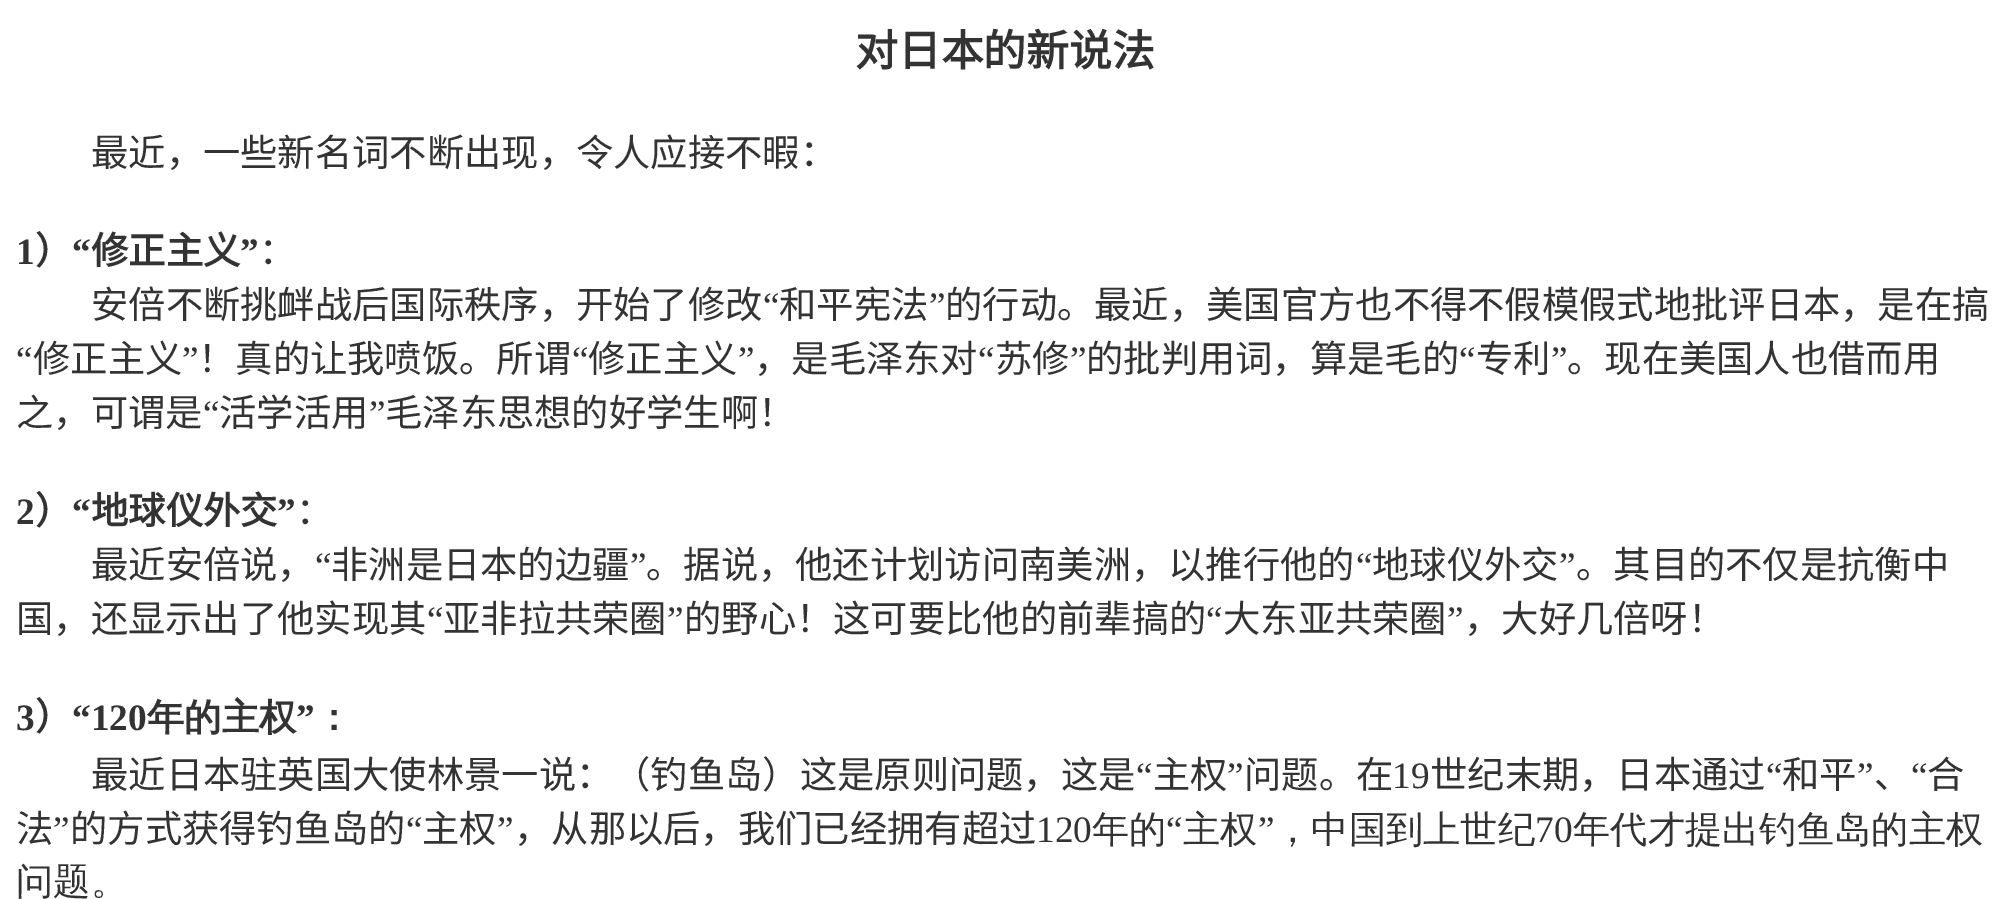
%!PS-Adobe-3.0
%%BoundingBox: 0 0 2008 899
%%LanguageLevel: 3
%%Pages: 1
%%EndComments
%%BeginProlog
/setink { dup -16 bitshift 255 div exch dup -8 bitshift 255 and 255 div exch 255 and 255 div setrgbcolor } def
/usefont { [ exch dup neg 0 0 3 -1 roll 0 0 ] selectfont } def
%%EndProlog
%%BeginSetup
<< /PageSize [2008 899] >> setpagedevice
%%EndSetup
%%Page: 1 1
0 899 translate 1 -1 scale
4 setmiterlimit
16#FFFFFF setink
0 0 2008 899 rectfill
/NotoSansCJKSC-Bold 42.75 usefont
16#333333 setink
855 66 moveto (对日本的新说法) show
/NotoSansCJKSC-Regular 37.3 usefont
91 166 moveto (最近，一些新名词不断出现，令人应接不暇：) show
/LiberationSerif-Bold 37.3 usefont
16 264 moveto (1) show
/NotoSansCJKSC-Bold 37.3 usefont
35 264 moveto (）) show
/LiberationSerif-Bold 37.3 usefont
72 264 moveto (“) show
/NotoSansCJKSC-Bold 37.3 usefont
91 264 moveto (修正主义) show
/LiberationSerif-Bold 37.3 usefont
240 264 moveto (”) show
/NotoSansCJKSC-Regular 37.3 usefont
259 264 moveto (：) show
91 318 moveto (安倍不断挑衅战后国际秩序，开始了修改) show
/LiberationSerif-Regular 37.3 usefont
763 318 moveto (“) show
/NotoSansCJKSC-Regular 37.3 usefont
779 318 moveto (和平宪法) show
/LiberationSerif-Regular 37.3 usefont
929 318 moveto (”) show
/NotoSansCJKSC-Regular 37.3 usefont
945 318 moveto (的行动。最近，美国官方也不得不假模假式地批评日本，是在搞) show
/LiberationSerif-Regular 37.3 usefont
16 372 moveto (“) show
/NotoSansCJKSC-Regular 37.3 usefont
33 372 moveto (修正主义) show
/LiberationSerif-Regular 37.3 usefont
182 372 moveto (”) show
/NotoSansCJKSC-Regular 37.3 usefont
198 372 moveto (！真的让我喷饭。所谓) show
/LiberationSerif-Regular 37.3 usefont
572 372 moveto (“) show
/NotoSansCJKSC-Regular 37.3 usefont
588 372 moveto (修正主义) show
/LiberationSerif-Regular 37.3 usefont
738 372 moveto (”) show
/NotoSansCJKSC-Regular 37.3 usefont
754 372 moveto (，是毛泽东对) show
/LiberationSerif-Regular 37.3 usefont
978 372 moveto (“) show
/NotoSansCJKSC-Regular 37.3 usefont
995 372 moveto (苏修) show
/LiberationSerif-Regular 37.3 usefont
1070 372 moveto (”) show
/NotoSansCJKSC-Regular 37.3 usefont
1086 372 moveto (的批判用词，算是毛的) show
/LiberationSerif-Regular 37.3 usefont
1459 372 moveto (“) show
/NotoSansCJKSC-Regular 37.3 usefont
1476 372 moveto (专利) show
/LiberationSerif-Regular 37.3 usefont
1551 372 moveto (”) show
/NotoSansCJKSC-Regular 37.3 usefont
1567 372 moveto (。现在美国人也借而用) show
16 426 moveto (之，可谓是) show
/LiberationSerif-Regular 37.3 usefont
203 426 moveto (“) show
/NotoSansCJKSC-Regular 37.3 usefont
219 426 moveto (活学活用) show
/LiberationSerif-Regular 37.3 usefont
369 426 moveto (”) show
/NotoSansCJKSC-Regular 37.3 usefont
385 426 moveto (毛泽东思想的好学生啊！) show
/LiberationSerif-Bold 37.3 usefont
16 524 moveto (2) show
/NotoSansCJKSC-Bold 37.3 usefont
35 524 moveto (）) show
/LiberationSerif-Bold 37.3 usefont
72 524 moveto (“) show
/NotoSansCJKSC-Bold 37.3 usefont
91 524 moveto (地球仪外交) show
/LiberationSerif-Bold 37.3 usefont
277 524 moveto (”) show
/NotoSansCJKSC-Regular 37.3 usefont
296 524 moveto (：) show
91 578 moveto (最近安倍说，) show
/LiberationSerif-Regular 37.3 usefont
315 578 moveto (“) show
/NotoSansCJKSC-Regular 37.3 usefont
331 578 moveto (非洲是日本的边疆) show
/LiberationSerif-Regular 37.3 usefont
630 578 moveto (”) show
/NotoSansCJKSC-Regular 37.3 usefont
646 578 moveto (。据说，他还计划访问南美洲，以推行他的) show
/LiberationSerif-Regular 37.3 usefont
1356 578 moveto (“) show
/NotoSansCJKSC-Regular 37.3 usefont
1372 578 moveto (地球仪外交) show
/LiberationSerif-Regular 37.3 usefont
1559 578 moveto (”) show
/NotoSansCJKSC-Regular 37.3 usefont
1576 578 moveto (。其目的不仅是抗衡中) show
16 632 moveto (国，还显示出了他实现其) show
/LiberationSerif-Regular 37.3 usefont
427 632 moveto (“) show
/NotoSansCJKSC-Regular 37.3 usefont
443 632 moveto (亚非拉共荣圈) show
/LiberationSerif-Regular 37.3 usefont
667 632 moveto (”) show
/NotoSansCJKSC-Regular 37.3 usefont
684 632 moveto (的野心！这可要比他的前辈搞的) show
/LiberationSerif-Regular 37.3 usefont
1206 632 moveto (“) show
/NotoSansCJKSC-Regular 37.3 usefont
1223 632 moveto (大东亚共荣圈) show
/LiberationSerif-Regular 37.3 usefont
1447 632 moveto (”) show
/NotoSansCJKSC-Regular 37.3 usefont
1464 632 moveto (，大好几倍呀！) show
/LiberationSerif-Bold 37.3 usefont
16 730 moveto (3) show
/NotoSansCJKSC-Bold 37.3 usefont
35 730 moveto (）) show
/LiberationSerif-Bold 37.3 usefont
72 730 moveto (“120) show
/WenQuanYiZenHei-Bold 37.3 usefont
147 730 moveto (年的主权) show
/LiberationSerif-Bold 37.3 usefont
296 730 moveto (”) show
/WenQuanYiZenHei-Bold 37.3 usefont
315 730 moveto (：) show
/NotoSansCJKSC-Regular 37.3 usefont
91 788 moveto (最近日本驻英国大使林景一说：（钓鱼岛）这是原则问题，这是) show
/LiberationSerif-Regular 37.3 usefont
1136 788 moveto (“) show
/NotoSansCJKSC-Regular 37.3 usefont
1153 788 moveto (主权) show
/LiberationSerif-Regular 37.3 usefont
1227 788 moveto (”) show
/NotoSansCJKSC-Regular 37.3 usefont
1244 788 moveto (问题。在) show
/LiberationSerif-Regular 37.3 usefont
1392 788 moveto (19) show
/NotoSansCJKSC-Regular 37.3 usefont
1430 788 moveto (世纪末期，日本通过) show
/LiberationSerif-Regular 37.3 usefont
1766 788 moveto (“) show
/NotoSansCJKSC-Regular 37.3 usefont
1782 788 moveto (和平) show
/LiberationSerif-Regular 37.3 usefont
1857 788 moveto (”) show
1911 788 moveto (“) show
/NotoSansCJKSC-Regular 37.3 usefont
[
    [(合) 1927 788]
    [(、) 1874 788]
    [(法) 16 842]
] { aload pop moveto show } forall
/LiberationSerif-Regular 37.3 usefont
53 842 moveto (”) show
/NotoSansCJKSC-Regular 37.3 usefont
70 842 moveto (的方式获得钓鱼岛的) show
/LiberationSerif-Regular 37.3 usefont
406 842 moveto (“) show
/NotoSansCJKSC-Regular 37.3 usefont
422 842 moveto (主权) show
/LiberationSerif-Regular 37.3 usefont
497 842 moveto (”) show
/NotoSansCJKSC-Regular 37.3 usefont
514 842 moveto (，从那以后，我们已经拥有超过) show
/LiberationSerif-Regular 37.3 usefont
1036 842 moveto (120) show
/WenQuanYiZenHei-Medium 37.3 usefont
1092 842 moveto (年的) show
/LiberationSerif-Regular 37.3 usefont
1166 842 moveto (“) show
/WenQuanYiZenHei-Medium 37.3 usefont
1183 842 moveto (主权) show
/LiberationSerif-Regular 37.3 usefont
1258 842 moveto (”) show
/WenQuanYiZenHei-Medium 37.3 usefont
1274 842 moveto (，中国到上世纪) show
/LiberationSerif-Regular 37.3 usefont
1535 842 moveto (70) show
/WenQuanYiZenHei-Medium 37.3 usefont
1573 842 moveto (年代才提出钓鱼岛的主权) show
16 894 moveto (问题。) show
showpage
%%EOF
